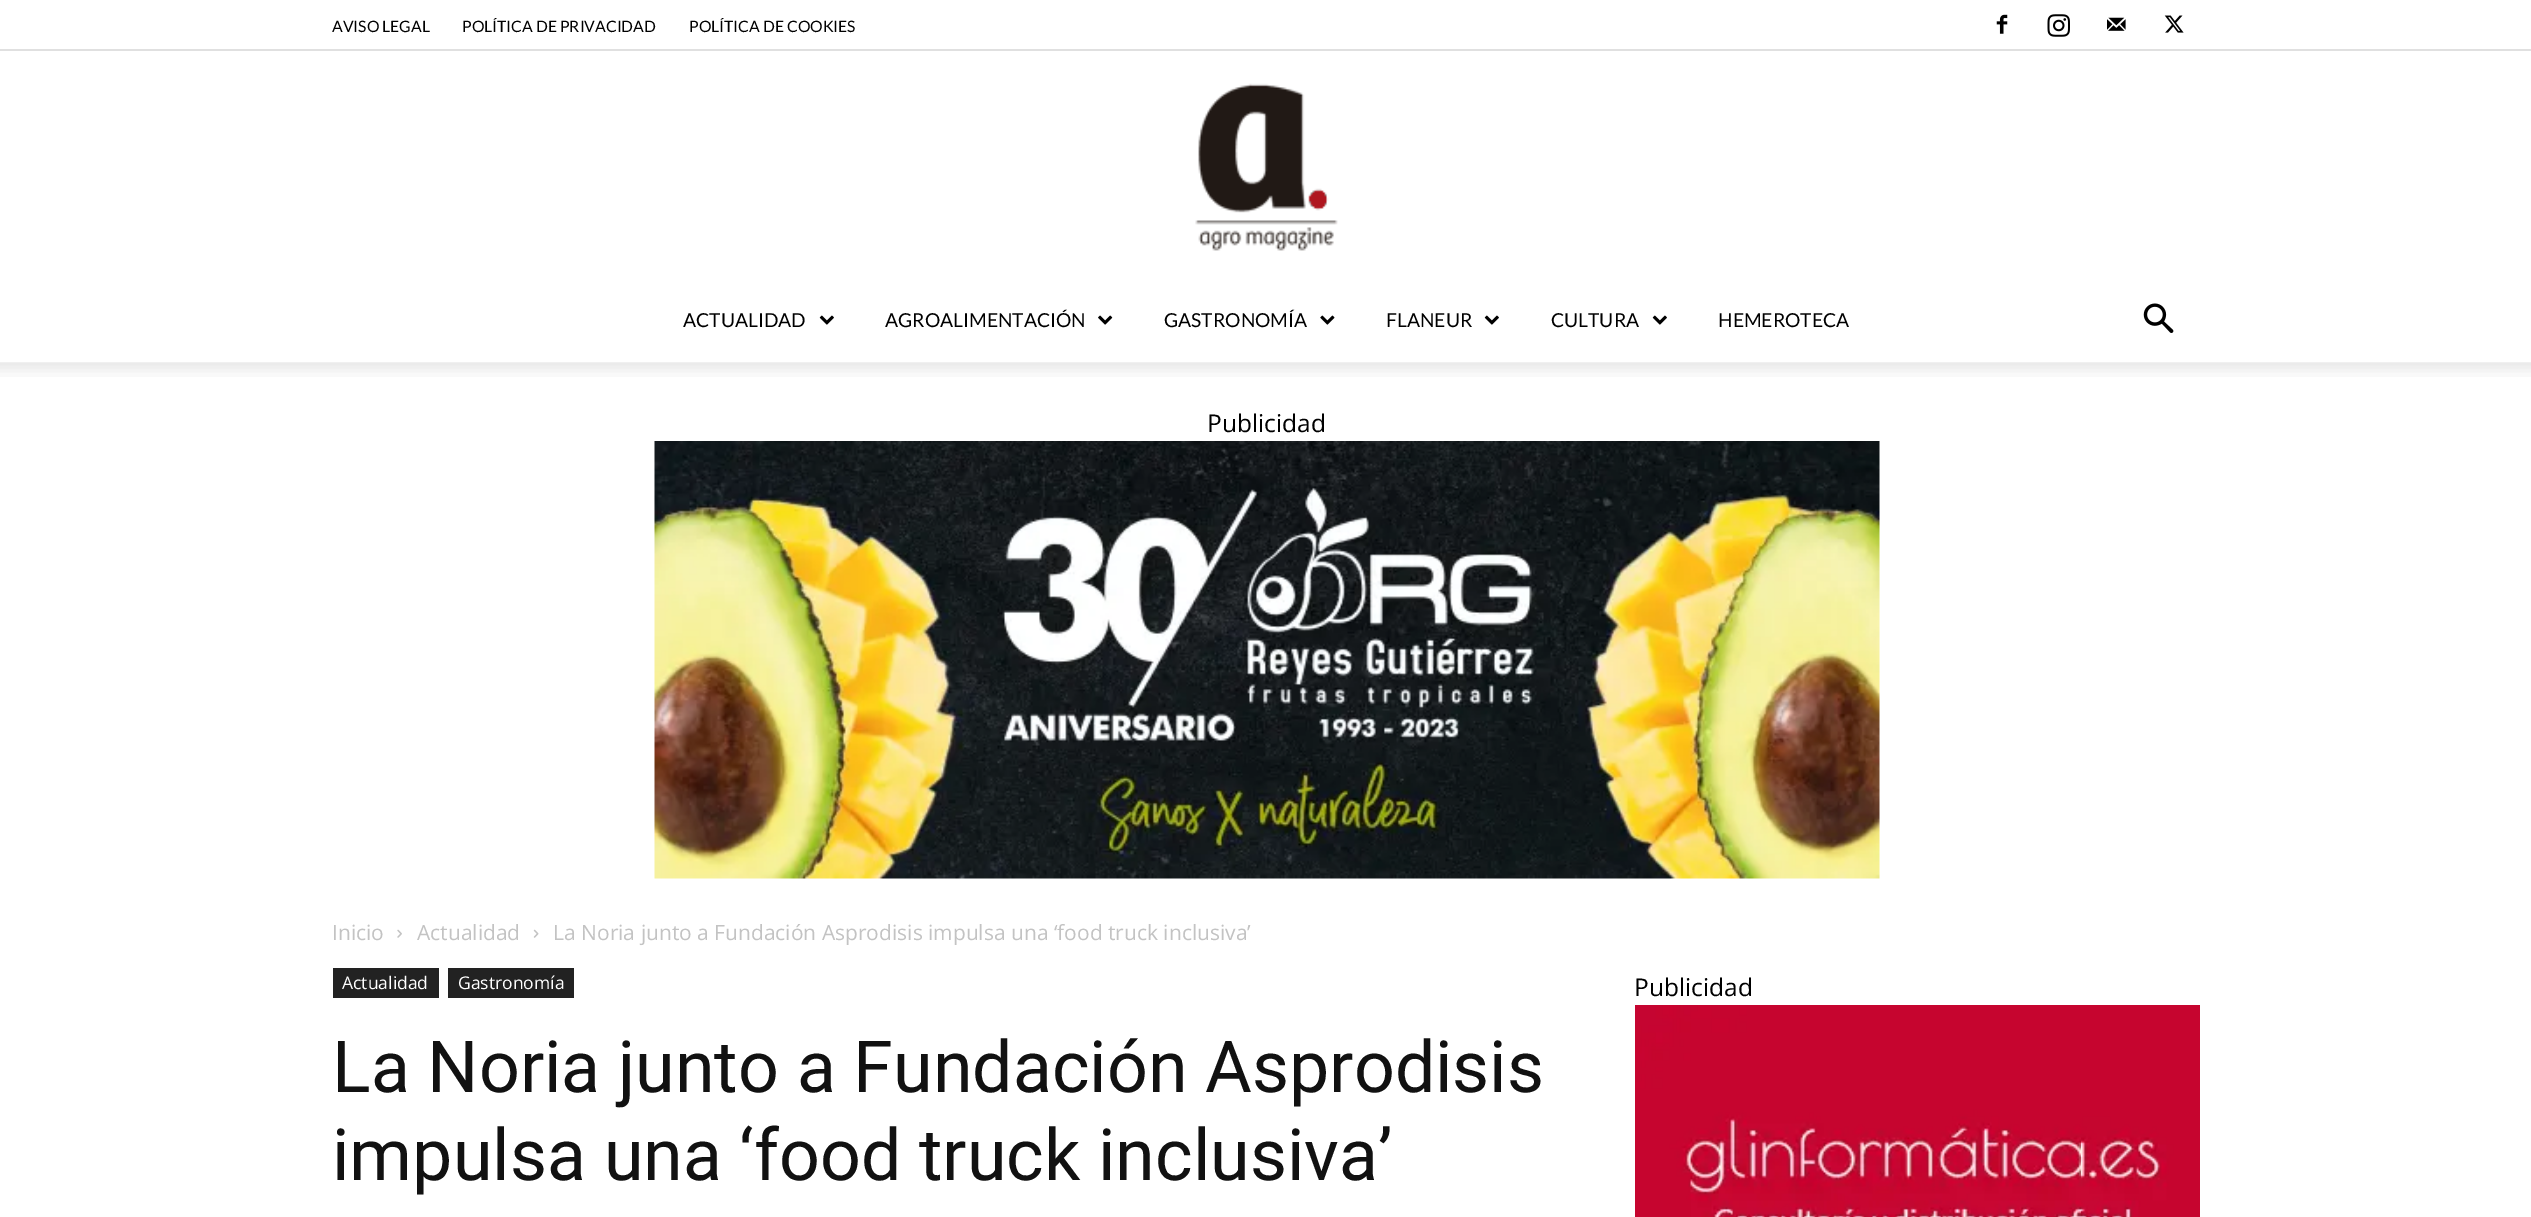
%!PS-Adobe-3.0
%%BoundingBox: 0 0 2531 1217
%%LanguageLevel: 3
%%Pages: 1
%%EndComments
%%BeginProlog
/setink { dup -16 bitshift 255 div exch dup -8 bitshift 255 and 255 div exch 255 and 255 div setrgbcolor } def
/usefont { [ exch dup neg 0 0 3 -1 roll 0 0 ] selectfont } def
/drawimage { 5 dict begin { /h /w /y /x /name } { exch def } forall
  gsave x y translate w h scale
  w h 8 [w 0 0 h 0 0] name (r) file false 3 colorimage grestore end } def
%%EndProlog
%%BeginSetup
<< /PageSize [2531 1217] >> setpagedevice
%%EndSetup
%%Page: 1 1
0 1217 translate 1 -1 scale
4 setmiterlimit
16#FFFFFF setink
0 0 2531 1217 rectfill
16#E0E0E0 setink
0 49 2531 2 rectfill
/Lato-Regular 15.75 usefont
16#000000 setink
[
    [(AVISO LEGAL) 332 32]
    [(POLÍTICA DE PRIVACIDAD) 462 32]
    [(POLÍTICA DE COOKIES) 689 32]
] { aload pop moveto show } forall
(img1.raw) 1996 14 12 20 drawimage
(img2.raw) 2047 14 23 23 drawimage
(img3.raw) 2107 17 19 14 drawimage
(img4.raw) 2164 15 20 18 drawimage
(img5.raw) 1195 83 143 168 drawimage
/Lato-Regular 19.25 usefont
683 327 moveto (ACTUALIDAD) show
(img6.raw) 819 315 15 10 drawimage
885 327 moveto (AGROALIMENTACIÓN) show
(img7.raw) 1098 315 15 10 drawimage
1164 327 moveto (GASTRONOMÍA) show
(img8.raw) 1320 315 15 10 drawimage
1386 327 moveto (FLANEUR) show
(img6.raw) 1484 315 15 10 drawimage
1551 327 moveto (CULTURA) show
(img6.raw) 1652 315 15 10 drawimage
1718 327 moveto (HEMEROTECA) show
(img9.raw) 2143 303 31 30 drawimage
(img10.raw) 0 362 2531 15 drawimage
/OpenSans-Regular 24.5 usefont
1207 432 moveto (Publicidad) show
(img11.raw) 654 441 1226 438 drawimage
/OpenSans-Regular 21 usefont
16#C3C3C3 setink
332 940 moveto (Inicio) show
(img12.raw) 397 929 5 9 drawimage
417 940 moveto (Actualidad) show
(img13.raw) 533 929 6 9 drawimage
553 940 moveto (La Noria junto a Fundación Asprodisis impulsa una ‘food truck inclusiva’) show
16#222222 setink
333 968 106 30 rectfill
/OpenSans-Regular 17.5 usefont
16#FFFFFF setink
342 989 moveto (Actualidad) show
16#222222 setink
448 968 126 30 rectfill
16#FFFFFF setink
458 989 moveto (Gastronomía) show
/Roboto-Regular 71.75 usefont
16#111111 setink
332 1092 moveto (La Noria junto a Fundación Asprodisis) show
332 1180 moveto (impulsa una ‘food truck inclusiva’) show
/OpenSans-Regular 24.5 usefont
16#000000 setink
1634 996 moveto (Publicidad) show
(img14.raw) 1635 1005 565 212 drawimage
showpage
%%EOF
